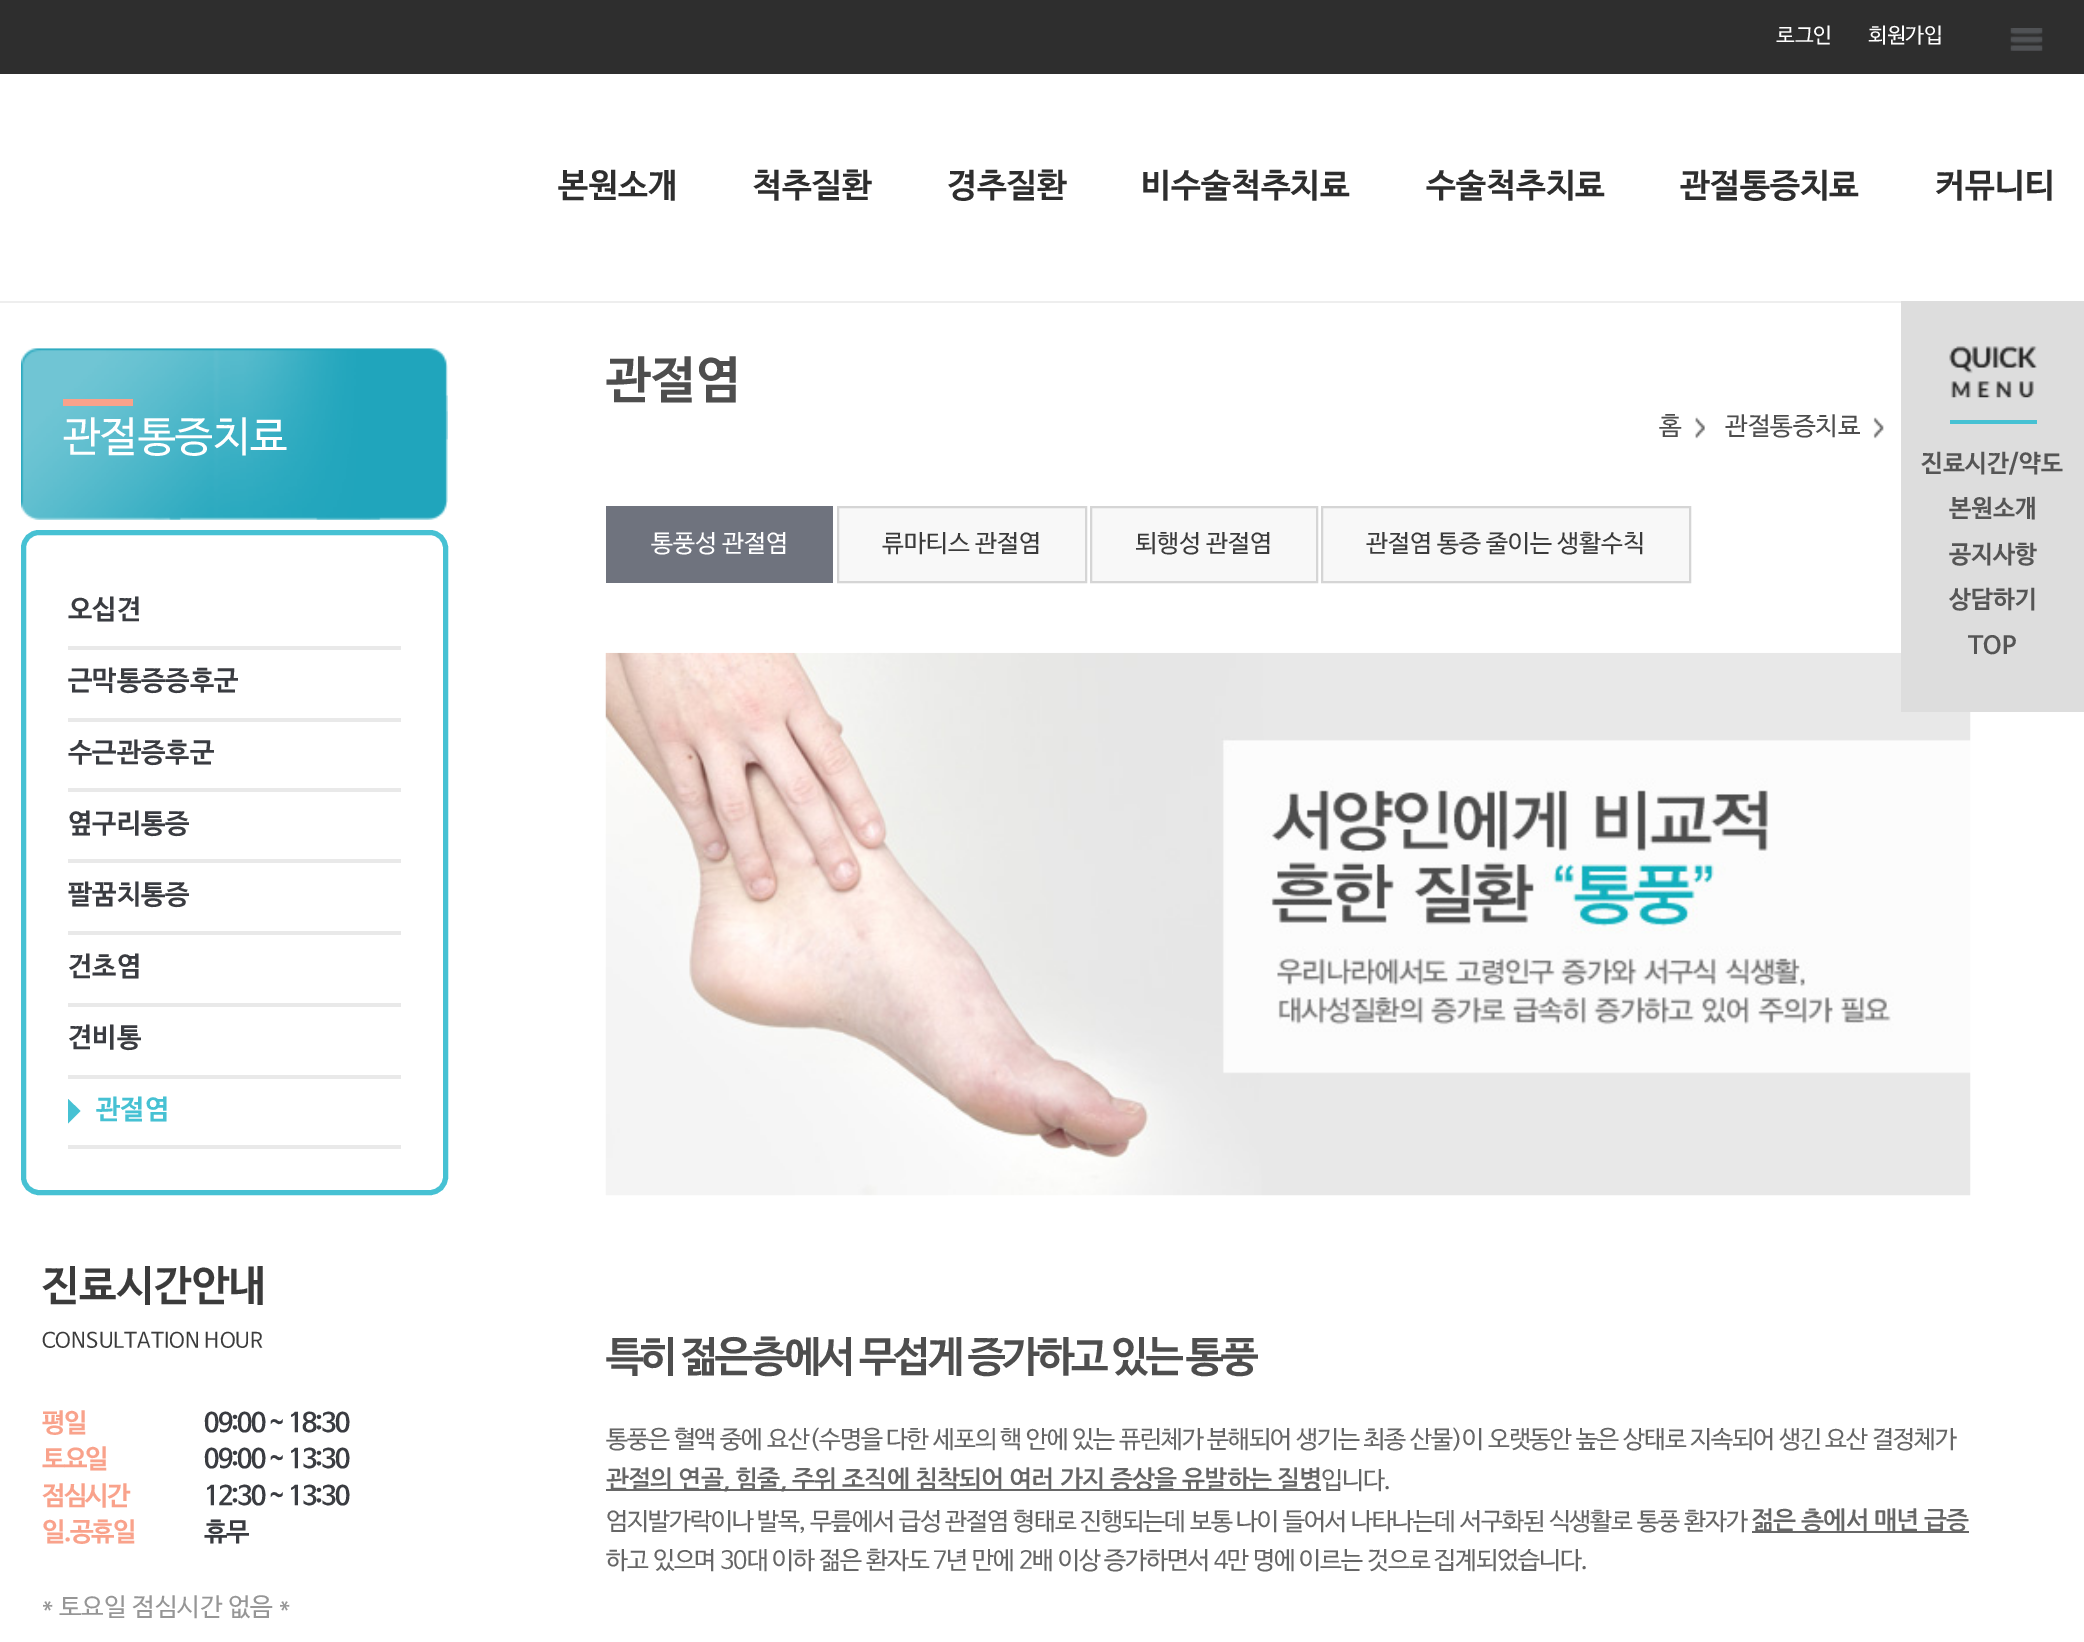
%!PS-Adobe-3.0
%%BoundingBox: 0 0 2084 1642
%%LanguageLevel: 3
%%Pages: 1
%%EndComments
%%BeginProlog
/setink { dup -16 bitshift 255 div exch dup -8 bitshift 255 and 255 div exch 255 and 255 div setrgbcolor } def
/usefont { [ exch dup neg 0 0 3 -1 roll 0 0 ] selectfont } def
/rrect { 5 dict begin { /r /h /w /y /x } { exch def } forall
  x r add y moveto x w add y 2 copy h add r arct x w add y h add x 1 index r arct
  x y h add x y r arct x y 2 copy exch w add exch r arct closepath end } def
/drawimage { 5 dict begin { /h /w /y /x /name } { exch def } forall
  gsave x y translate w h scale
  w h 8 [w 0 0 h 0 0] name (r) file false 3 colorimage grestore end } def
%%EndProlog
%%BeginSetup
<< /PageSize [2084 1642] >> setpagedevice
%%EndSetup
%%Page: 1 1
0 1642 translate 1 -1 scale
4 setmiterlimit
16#FFFFFF setink
0 0 2084 1642 rectfill
16#EEEEEE setink
0 301 1901 2 rectfill
16#2E2E2E setink
0 0 2084 74 rectfill
/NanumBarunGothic-Regular 21 usefont
16#FFFFFF setink
1776 42 moveto (로그인) show
1868 42 moveto (회원가입) show
(img1.raw) 2010 28 33 23 drawimage
/NanumBarunGothic-Bold 33.5 usefont
16#2E2E2E setink
[
    [(본원소개) 558 196]
    [(척추질환) 752 196]
    [(경추질환) 947 196]
    [(비수술척추치료) 1141 196]
    [(수술척추치료) 1426 196]
    [(관절통증치료) 1680 196]
    [(커뮤니티) 1935 196]
] { aload pop moveto show } forall
(img2.raw) 21 348 427 172 drawimage
16#F9A28B setink
63 399 70 7 rectfill
/NanumBarunGothic-Regular 42 usefont
16#FFFFFF setink
63 450 moveto (관절통증치료) show
16#46C1D3 setink
5 setlinewidth
23.5 532.5 422 660 15.5 rrect stroke
16#E9E9E9 setink
68 646 333 4 rectfill
/NanumBarunGothic-Bold 27.25 usefont
16#3A3C41 setink
68 618 moveto (오십견) show
16#E9E9E9 setink
68 718 333 4 rectfill
16#3A3C41 setink
68 689 moveto (근막통증증후군) show
16#E9E9E9 setink
68 788 333 4 rectfill
16#3A3C41 setink
68 761 moveto (수근관증후군) show
16#E9E9E9 setink
68 859 333 4 rectfill
16#3A3C41 setink
68 832 moveto (옆구리통증) show
16#E9E9E9 setink
68 931 333 4 rectfill
16#3A3C41 setink
68 903 moveto (팔꿈치통증) show
16#E9E9E9 setink
68 1003 333 4 rectfill
16#3A3C41 setink
68 975 moveto (건초염) show
16#E9E9E9 setink
68 1075 333 4 rectfill
16#3A3C41 setink
68 1046 moveto (견비통) show
16#E9E9E9 setink
68 1145 333 4 rectfill
16#46C1D3 setink
68 1123.5 moveto 68 1099 lineto 80.5 1111 lineto closepath fill
96 1118 moveto (관절염) show
/NanumBarunGothic-Bold 42 usefont
16#3B3B3B setink
42 1299 moveto (진료시간안내) show
/NanumBarunGothic-Regular 21 usefont
42 1347 moveto (CONSULTATION HOUR) show
/NanumBarunGothic-Bold 26.25 usefont
16#F9A28B setink
42 1431 moveto -1.75 0 (평일) ashow
16#3A3C41 setink
204 1431 moveto -1.75 0 (09:00 ~ 18:30) ashow
16#F9A28B setink
42 1467 moveto -1.75 0 (토요일) ashow
16#3A3C41 setink
204 1467 moveto -1.75 0 (09:00 ~ 13:30) ashow
16#F9A28B setink
42 1504 moveto -1.75 0 (점심시간) ashow
16#3A3C41 setink
204 1504 moveto -1.75 0 (12:30 ~ 13:30) ashow
16#F9A28B setink
42 1540 moveto -1.75 0 (일.공휴일) ashow
16#3A3C41 setink
204 1540 moveto -1.75 0 (휴무) ashow
/NanumBarunGothic-Regular 25.25 usefont
16#969696 setink
42 1615 moveto (* 토요일 점심시간 없음 *) show
/NanumBarunGothic-Bold 50.5 usefont
16#4E4E4E setink
606 396 moveto (관절염) show
(img3.raw) 1695 416 10 23 drawimage
/NanumBarunGothic-Regular 25.25 usefont
1659 434 moveto (홈) show
(img4.raw) 1873 417 11 22 drawimage
1725 434 moveto (관절통증치료) show
16#6F737E setink
606 506 227 77 rectfill
/NanumBarunGothic-Regular 24.5 usefont
16#FFFFFF setink
651 551 moveto (통풍성 관절염) show
16#F8F8F8 setink
838 507 moveto 1086 507 lineto 1086 582 lineto 838 582 lineto closepath gsave fill grestore
16#D5D5D5 setink
2 setlinewidth
stroke
16#3B3B3B setink
882 551 moveto (류마티스 관절염) show
16#F8F8F8 setink
1091 507 moveto 1317 507 lineto 1317 582 lineto 1091 582 lineto closepath gsave fill grestore
16#D5D5D5 setink
stroke
16#3B3B3B setink
1135 551 moveto (퇴행성 관절염) show
16#F8F8F8 setink
1322 507 moveto 1690 507 lineto 1690 582 lineto 1322 582 lineto closepath gsave fill grestore
16#D5D5D5 setink
stroke
16#3B3B3B setink
1366 551 moveto (관절염 통증 줄이는 생활수칙) show
(img5.raw) 605 652 1366 544 drawimage
gsave
606 653 1365 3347 rectclip
/NanumBarunGothic-Bold 42 usefont
16#4E4E4E setink
606 1370 moveto -3.15 0 (특히 젊은층에서 무섭게 증가하고 있는 통풍) ashow
/NanumBarunGothic-Regular 24.5 usefont
16#666666 setink
606 1447 moveto -0.88 0 (통풍은 혈액 중에 요산\(수명을 다한 세포의 핵 안에 있는 퓨린체가 분해되어 생기는 최종 산물\)이 오랫동안 높은 상태로 지속되어 생긴 요산) ashow
grestore
16#666666 setink
1872 1447 moveto -0.88 0 (결정체가) ashow
606 1489 715 2 rectfill
/NanumGothic-Bold 24.5 usefont
606 1488 moveto -0.88 0 (관절의 연골, 힘줄, 주위 조직에 침착되어 여러 가지 증상을 유발하는 질병) ashow
/NanumBarunGothic-Regular 24.5 usefont
1321 1488 moveto -0.88 0 (입니다.) ashow
606 1529 moveto -0.88 0 (엄지발가락이나 발목, 무릎에서 급성 관절염 형태로 진행되는데 보통 나이 들어서 나타나는데 서구화된 식생활로 통풍 환자가) ashow
1752 1531 217 2 rectfill
/NanumGothic-Bold 24.5 usefont
1751 1529 moveto -0.88 0 (젊은 층에서 매년 급증) ashow
/NanumBarunGothic-Regular 24.5 usefont
606 1568 moveto -0.88 0 (하고 있으며 30대 이하 젊은 환자도 7년 만에 2배 이상 증가하면서 4만 명에 이르는 것으로 집계되었습니다.) ashow
16#DDDDDD setink
1901 301 183 411 rectfill
(img6.raw) 1949 346 88 52 drawimage
16#46C1D3 setink
1950 420 87 4 rectfill
/NanumBarunGothic-Bold 24.5 usefont
16#555555 setink
[
    [(진료시간/약도) 1921 471]
    [(본원소개) 1949 516]
    [(공지사항) 1949 562]
    [(상담하기) 1949 607]
    [(TOP) 1968 653]
] { aload pop moveto show } forall
showpage
%%EOF
